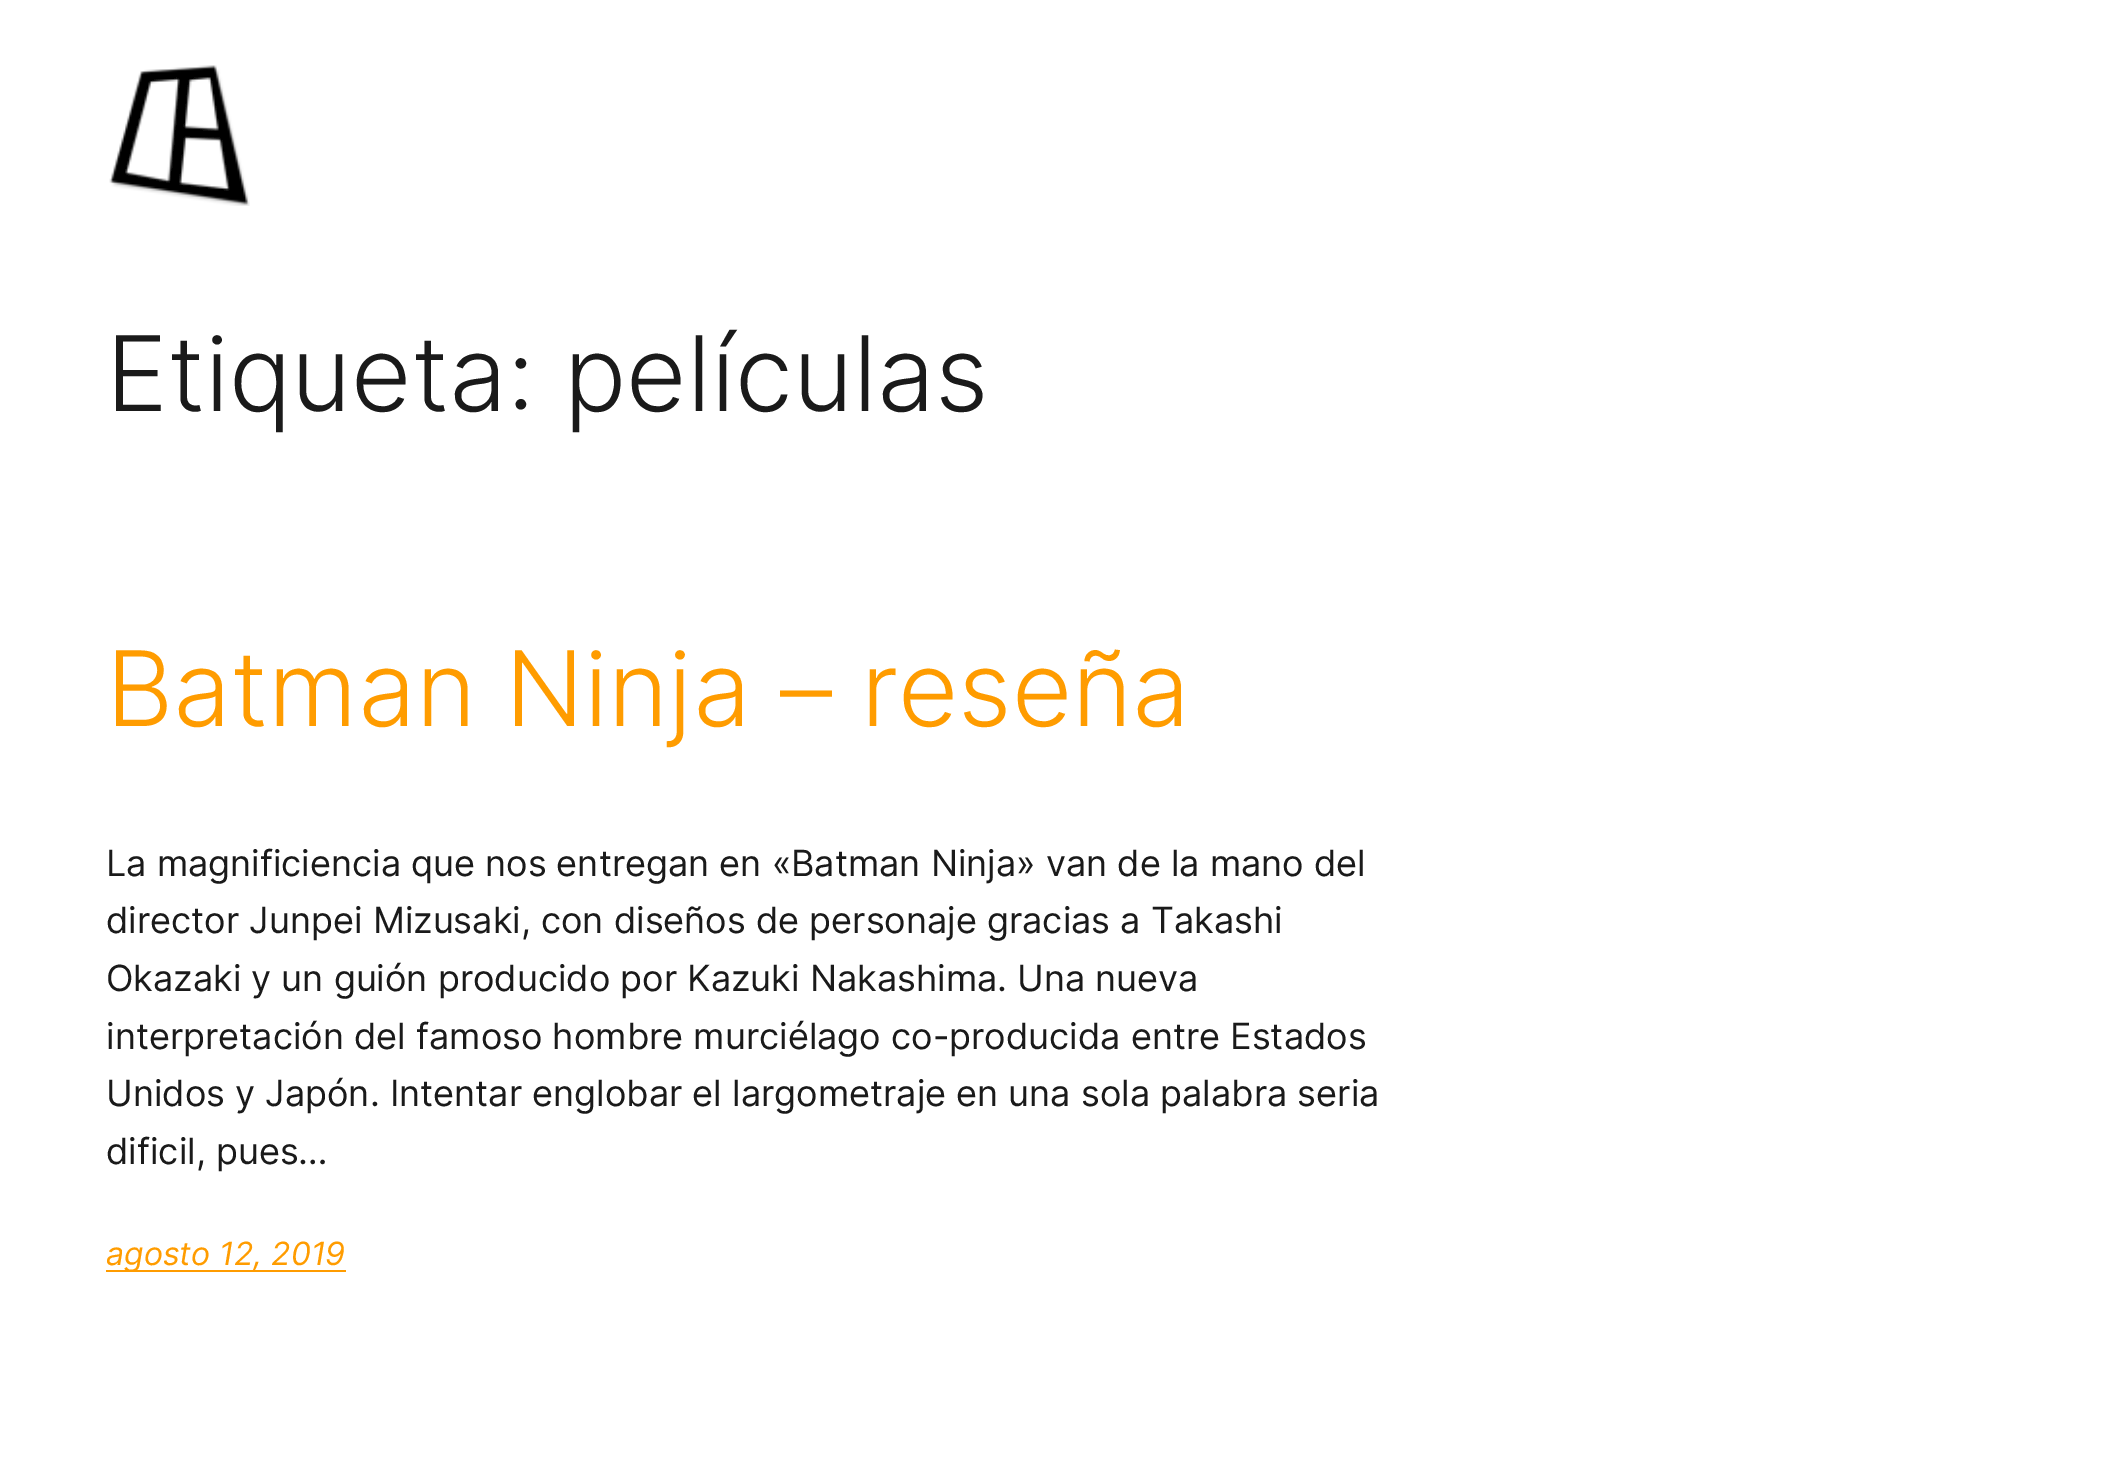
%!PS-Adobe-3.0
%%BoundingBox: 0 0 2128 1457
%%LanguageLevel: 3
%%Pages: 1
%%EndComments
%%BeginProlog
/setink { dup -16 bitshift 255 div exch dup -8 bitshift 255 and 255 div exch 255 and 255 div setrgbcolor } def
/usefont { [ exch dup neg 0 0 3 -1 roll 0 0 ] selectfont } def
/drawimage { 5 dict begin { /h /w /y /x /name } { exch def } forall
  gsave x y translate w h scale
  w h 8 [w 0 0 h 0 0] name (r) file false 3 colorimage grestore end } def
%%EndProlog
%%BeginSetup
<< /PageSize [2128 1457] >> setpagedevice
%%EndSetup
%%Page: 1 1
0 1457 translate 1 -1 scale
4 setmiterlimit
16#FFFFFF setink
0 0 2128 1457 rectfill
(img1.raw) 109 65 141 141 drawimage
/Inter-Light 104 usefont
16#1A1A1A setink
106 411 moveto (Etiqueta: películas) show
16#FF9C00 setink
106 726 moveto (Batman Ninja – reseña) show
/Inter-Regular 36 usefont
16#1A1A1A setink
[
    [(La magnificiencia que nos entregan en «Batman Ninja» van de la mano del) 106 876]
    [(director Junpei Mizusaki, con diseños de personaje gracias a Takashi) 106 933]
    [(Okazaki y un guión producido por Kazuki Nakashima. Una nueva) 106 991]
    [(interpretación del famoso hombre murciélago co-producida entre Estados) 106 1049]
    [(Unidos y Japón. Intentar englobar el largometraje en una sola palabra seria) 106 1106]
    [(dificil, pues…) 106 1164]
] { aload pop moveto show } forall
16#FF9C00 setink
106 1270 240 2 rectfill
/Inter-Italic 32 usefont
106 1265 moveto (agosto 12, 2019) show
showpage
%%EOF
